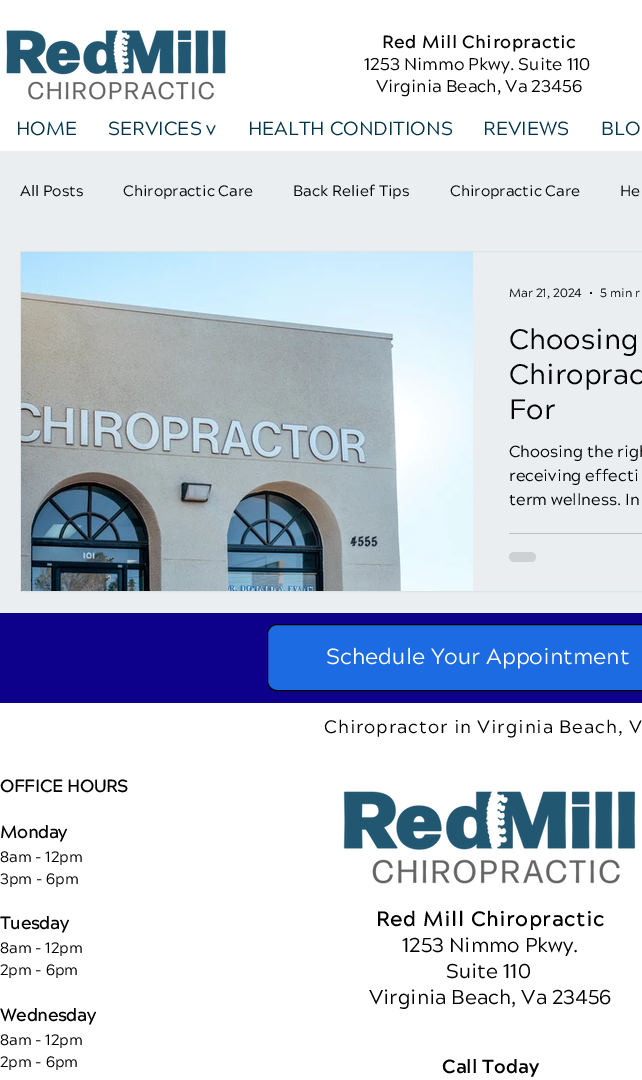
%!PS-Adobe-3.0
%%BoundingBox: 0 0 642 1080
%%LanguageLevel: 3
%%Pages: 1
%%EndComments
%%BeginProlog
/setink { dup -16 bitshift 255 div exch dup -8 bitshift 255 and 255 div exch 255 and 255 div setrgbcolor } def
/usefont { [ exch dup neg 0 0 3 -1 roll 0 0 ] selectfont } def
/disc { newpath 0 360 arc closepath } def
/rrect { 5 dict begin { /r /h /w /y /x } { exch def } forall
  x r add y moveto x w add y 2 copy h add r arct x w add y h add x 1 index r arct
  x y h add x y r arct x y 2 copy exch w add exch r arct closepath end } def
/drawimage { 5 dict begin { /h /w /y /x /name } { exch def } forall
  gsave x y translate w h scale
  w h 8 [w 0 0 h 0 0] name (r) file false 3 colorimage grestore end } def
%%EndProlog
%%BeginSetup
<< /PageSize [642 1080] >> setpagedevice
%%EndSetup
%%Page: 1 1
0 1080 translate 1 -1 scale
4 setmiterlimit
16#FFFFFF setink
0 0 642 1080 rectfill
(img1.raw) 6 30 220 70 drawimage
/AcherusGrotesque-Bold 17 usefont
16#000000 setink
382 48 moveto 0.85 0 (Red Mill Chiropractic) ashow
/AcherusGrotesque-Regular 17 usefont
364 70 moveto (1253 Nimmo Pkwy. Suite 110) show
376 92 moveto (Virginia Beach, Va 23456) show
/AcherusGrotesque-Regular 19 usefont
16#003449 setink
[
    [(HOME) 16 135]
    [(SERVICES v) 108 135]
    [(HEALTH CONDITIONS) 248 135]
    [(REVIEWS) 483 135]
    [(BLO) 601 135]
] { aload pop moveto show } forall
16#EAEEF0 setink
0 151 642 462 rectfill
/AcherusGrotesque-Regular 15 usefont
16#000000 setink
[
    [(All Posts) 20 196]
    [(Chiropractic Care) 123 196]
    [(Back Relief Tips) 293 196]
    [(Chiropractic Care) 450 196]
    [(He) 620 196]
] { aload pop moveto show } forall
16#DDE4E6 setink
20.5 251.5 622 340 rectstroke
(img2.raw) 21 252 452 339 drawimage
/AcherusGrotesque-Regular 12 usefont
16#000000 setink
509 297 moveto (Mar 21, 2024) show
591 293 1 disc fill
600 297 moveto (5 min r) show
/AcherusGrotesque-Regular 28 usefont
[
    [(Choosing) 509 349]
    [(Chiroprac) 509 384]
    [(For) 509 419]
] { aload pop moveto show } forall
/AcherusGrotesque-Regular 16 usefont
[
    [(Choosing the righ) 509 457]
    [(receiving effecti) 509 481]
    [(term wellness. In) 509 505]
] { aload pop moveto show } forall
16#BBBEC0 setink
509 533 133 1 rectfill
16#CED1D3 setink
509 552 27 10 5 rrect fill
16#0D008B setink
0 613 642 90 rectfill
16#1C6BE2 setink
267.5 624.5 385 66 9.5 rrect gsave fill grestore
16#000000 setink
stroke
/AcherusGrotesque-Regular 22 usefont
16#FFFFFF setink
326 664 moveto (Schedule Your Appointment) show
/AcherusGrotesque-Regular 18 usefont
16#000000 setink
324 733 moveto 0.9 0 (Chiropractor in Virginia Beach, V) ashow
/AcherusGrotesque-Bold 17 usefont
0 792 moveto (OFFICE HOURS) show
0 838 moveto (Monday) show
/AcherusGrotesque-Regular 15 usefont
0 862 moveto (8am - 12pm) show
0 884 moveto (3pm - 6pm) show
/AcherusGrotesque-Bold 17 usefont
0 929 moveto (Tuesday) show
/AcherusGrotesque-Regular 15 usefont
0 953 moveto (8am - 12pm) show
0 975 moveto (2pm - 6pm) show
/AcherusGrotesque-Bold 17 usefont
0 1021 moveto (Wednesday) show
/AcherusGrotesque-Regular 15 usefont
0 1045 moveto (8am - 12pm) show
0 1067 moveto (2pm - 6pm) show
(img3.raw) 343 791 293 93 drawimage
/AcherusGrotesque-Bold 20 usefont
376 926 moveto 1 0 (Red Mill Chiropractic) ashow
/AcherusGrotesque-Regular 20 usefont
[
    [(1253 Nimmo Pkwy.) 402 952]
    [(Suite 110) 446 978]
    [(Virginia Beach, Va 23456) 369 1004]
] { aload pop moveto show } forall
/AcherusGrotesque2-Bold 19 usefont
442 1073 moveto (Call Today) show
showpage
%%EOF
